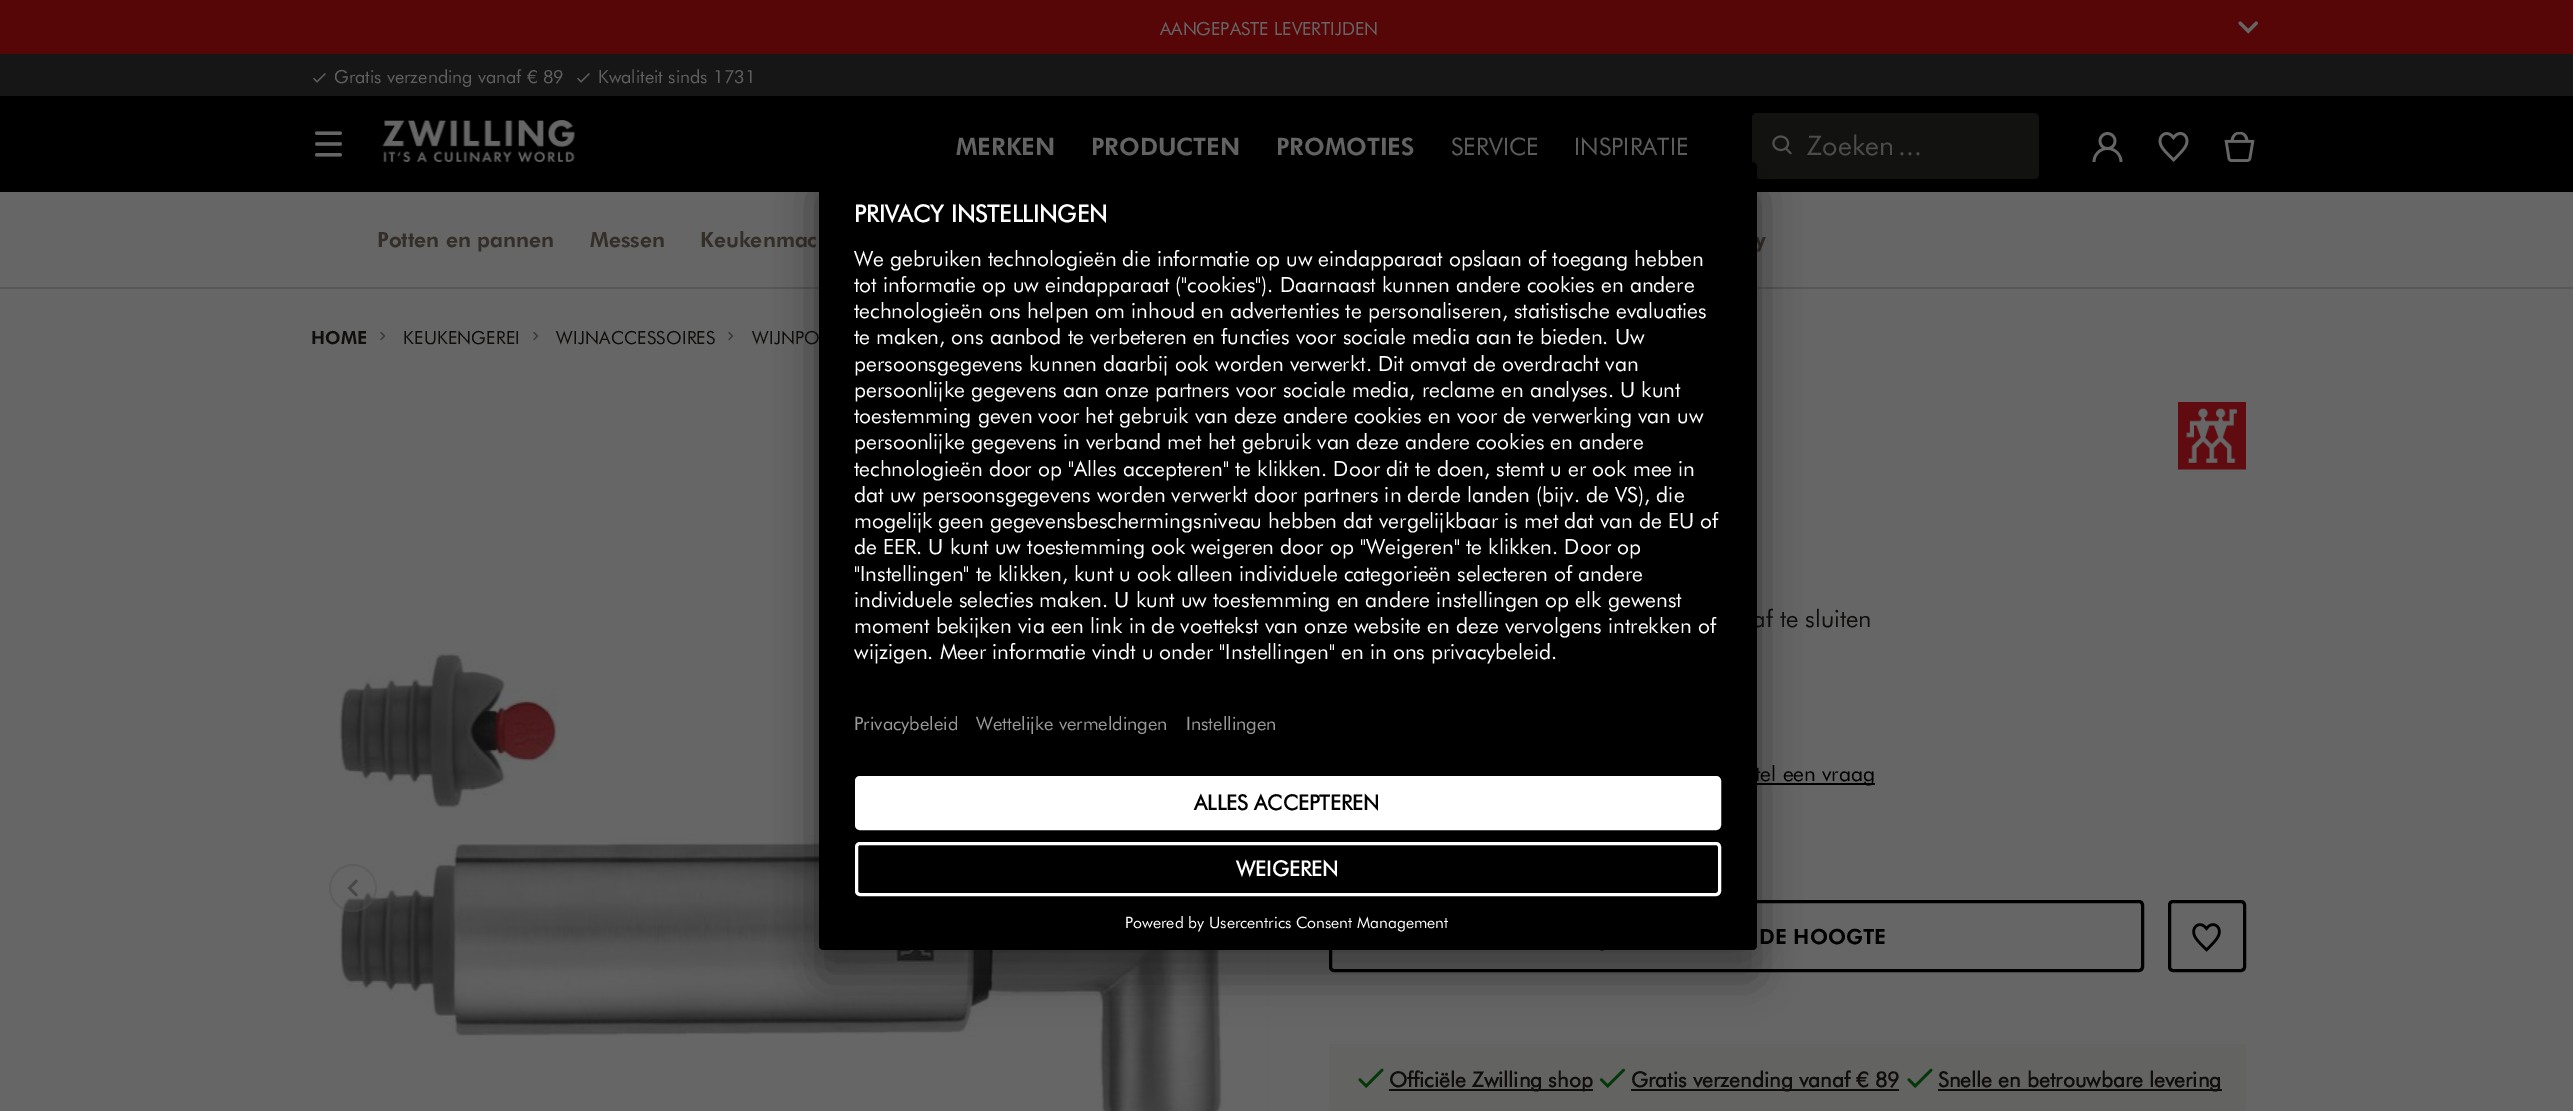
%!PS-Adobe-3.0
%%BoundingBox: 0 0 2573 1111
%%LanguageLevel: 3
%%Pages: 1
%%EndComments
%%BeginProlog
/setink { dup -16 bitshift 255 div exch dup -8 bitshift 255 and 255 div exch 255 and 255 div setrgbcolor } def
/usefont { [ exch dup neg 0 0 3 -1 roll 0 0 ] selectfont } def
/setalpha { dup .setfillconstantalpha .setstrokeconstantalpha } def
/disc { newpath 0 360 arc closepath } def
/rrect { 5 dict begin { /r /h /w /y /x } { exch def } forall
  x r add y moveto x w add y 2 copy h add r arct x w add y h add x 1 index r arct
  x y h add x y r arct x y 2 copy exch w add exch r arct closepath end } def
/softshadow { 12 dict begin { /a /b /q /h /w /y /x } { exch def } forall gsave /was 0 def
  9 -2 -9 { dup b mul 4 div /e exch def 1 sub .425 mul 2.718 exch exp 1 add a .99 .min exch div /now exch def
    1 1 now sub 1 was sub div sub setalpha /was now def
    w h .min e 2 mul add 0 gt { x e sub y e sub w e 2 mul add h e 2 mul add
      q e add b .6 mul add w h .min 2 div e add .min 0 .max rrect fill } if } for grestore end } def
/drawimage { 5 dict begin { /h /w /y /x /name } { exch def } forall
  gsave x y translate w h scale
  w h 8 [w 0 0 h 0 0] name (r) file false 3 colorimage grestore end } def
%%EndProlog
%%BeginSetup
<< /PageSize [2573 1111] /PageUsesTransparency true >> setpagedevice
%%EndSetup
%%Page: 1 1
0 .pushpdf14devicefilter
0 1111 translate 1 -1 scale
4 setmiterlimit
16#161616 setink
0 0 2573 1111 rectfill
16#560607 setink
0 0 2573 54 rectfill
/Futura-Regular 18 usefont
16#666666 setink
1160 35 moveto (AANGEPASTE LEVERTIJDEN) show
(img1.raw) 2238 21 20 13 drawimage
(img2.raw) 313 73 13 10 drawimage
16#605E5E setink
334 83 moveto (Gratis verzending vanaf € 89) show
(img2.raw) 577 73 13 10 drawimage
598 83 moveto (Kwaliteit sinds 1731) show
16#000000 setink
0 96 2573 96 rectfill
(img3.raw) 315 131 27 26 drawimage
(img4.raw) 382 120 193 42 drawimage
/Futura-Bold 24 usefont
16#666666 setink
[
    [(MERKEN) 956 155]
    [(PRODUCTEN) 1091 155]
    [(PROMOTIES) 1276 155]
] { aload pop moveto show } forall
/Futura-Regular 24 usefont
16#605E5E setink
1451 155 moveto (SERVICE) show
1574 155 moveto (INSPIRATIE) show
16#121210 setink
1752 113 287 66 5 rrect fill
(img5.raw) 1772 135 20 20 drawimage
/Futura-Regular 27 usefont
16#4C4C4C setink
1807 155 moveto (Zoeken) show
1898 155 moveto (...) show
(img6.raw) 2092 132 31 30 drawimage
(img7.raw) 2158 132 31 30 drawimage
(img8.raw) 2224 132 31 30 drawimage
16#666666 setink
0 192 2573 95 rectfill
16#575757 setink
0 287 2573 2 rectfill
/Futura-Bold 21 usefont
16#342E29 setink
[
    [(Potten en pannen) 377 247]
    [(Messen) 590 247]
    [(Keukenmac) 700 247]
    [(y) 1755 247]
] { aload pop moveto show } forall
16#666666 setink
0 289 2573 822 rectfill
/Futura-Bold 18 usefont
16#100E0C setink
311 344 moveto 0.25 0 (HOME) ashow
(img9.raw) 380 332 6 9 drawimage
/Futura-Regular 18 usefont
403 344 moveto 0.25 0 (KEUKENGEREI) ashow
(img9.raw) 533 332 6 9 drawimage
556 344 moveto 0.25 0 (WIJNACCESSOIRES) ashow
(img9.raw) 728 332 6 9 drawimage
752 344 moveto 0.25 0 (WIJNPO) ashow
(img10.raw) 293 401 976 710 drawimage
0.15 setalpha
16#666666 setink
353 888 24 disc fill
0.3 setalpha
16#4F4C4A setink
2 setlinewidth
353 888 23 disc stroke
1 setalpha
(img11.raw) 347 879 11 18 drawimage
(img12.raw) 2178 402 68 68 drawimage
/Futura-Regular 24 usefont
16#100E0C setink
1752 627 moveto (af te sluiten) show
16#000000 setink
1757 783 118 2 rectfill
/Futura-Regular 21 usefont
1755 781 moveto (tel een vraag) show
3 setlinewidth
1330.5 901.5 812 69 3.5 rrect stroke
/Futura-Bold 21 usefont
1759 944 moveto (DE HOOGTE) show
(img13.raw) 1600 950 4 1 drawimage
2169.5 901.5 75 69 3.5 rrect stroke
(img14.raw) 2192 923 29 29 drawimage
16#636362 setink
1329 1044 917 67 rectfill
(img15.raw) 1358 1068 26 20 drawimage
16#100E0C setink
1389 1089 204 2 rectfill
/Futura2-Bold 21 usefont
1389 1087 moveto (Officiële Zwilling shop) show
(img16.raw) 1600 1068 25 20 drawimage
1631 1089 268 2 rectfill
1631 1087 moveto (Gratis verzending vanaf € 89) show
(img15.raw) 1907 1068 26 20 drawimage
1938 1089 284 2 rectfill
1938 1087 moveto (Snelle en betrouwbare levering) show
16#000000 setink
819 192 938 788 5 21 0.3 softshadow
819 170 938 787 5 19.5 0.22 softshadow
819 162 938 788 5 rrect fill
/Futura2-Bold 23.6 usefont
16#FFFFFF setink
854 222 moveto (PRIVACY INSTELLINGEN) show
/Futura-Regular 21 usefont
[
    [(We gebruiken technologieën die informatie op uw eindapparaat opslaan of toegang hebben) 854 266]
    [(tot informatie op uw eindapparaat \("cookies"\). Daarnaast kunnen andere cookies en andere) 854 292]
    [(technologieën ons helpen om inhoud en advertenties te personaliseren, statistische evaluaties) 854 318]
    [(te maken, ons aanbod te verbeteren en functies voor sociale media aan te bieden. Uw) 854 344]
    [(persoonsgegevens kunnen daarbij ook worden verwerkt. Dit omvat de overdracht van) 854 371]
    [(persoonlijke gegevens aan onze partners voor sociale media, reclame en analyses. U kunt) 854 397]
    [(toestemming geven voor het gebruik van deze andere cookies en voor de verwerking van uw) 854 423]
    [(persoonlijke gegevens in verband met het gebruik van deze andere cookies en andere) 854 449]
    [(technologieën door op "Alles accepteren" te klikken. Door dit te doen, stemt u er ook mee in) 854 476]
    [(dat uw persoonsgegevens worden verwerkt door partners in derde landen \(bijv. de VS\), die) 854 502]
    [(mogelijk geen gegevensbeschermingsniveau hebben dat vergelijkbaar is met dat van de EU of) 854 528]
    [(de EER. U kunt uw toestemming ook weigeren door op "Weigeren" te klikken. Door op) 854 554]
    [("Instellingen" te klikken, kunt u ook alleen individuele categorieën selecteren of andere) 854 581]
    [(individuele selecties maken. U kunt uw toestemming en andere instellingen op elk gewenst) 854 607]
    [(moment bekijken via een link in de voettekst van onze website en deze vervolgens intrekken of) 854 633]
    [(wijzigen. Meer informatie vindt u onder "Instellingen" en in ons privacybeleid.) 854 659]
] { aload pop moveto show } forall
/Futura-Regular 18.4 usefont
16#999999 setink
[
    [(Privacybeleid) 854 730]
    [(Wettelijke vermeldingen) 976 730]
    [(Instellingen) 1186 730]
] { aload pop moveto show } forall
16#000000 setink
819 758 moveto 1757 758 lineto 1757 945 lineto 1757 948 1755 950 1752 950 curveto 824 950 lineto 821 950 819 948 819 945 curveto closepath fill
16#FFFFFF setink
856.5 777.5 863 51 3.5 rrect gsave fill grestore
stroke
/Futura2-Bold 21 usefont
16#000000 setink
1194 810 moveto (ALLES ACCEPTEREN) show
16#FFFFFF setink
856.5 843.5 863 51 3.5 rrect stroke
1236 876 moveto (WEIGEREN) show
/Futura-Regular 15.75 usefont
1125 928 moveto (Powered by Usercentrics Consent Management) show
.poppdf14devicefilter showpage
%%EOF
